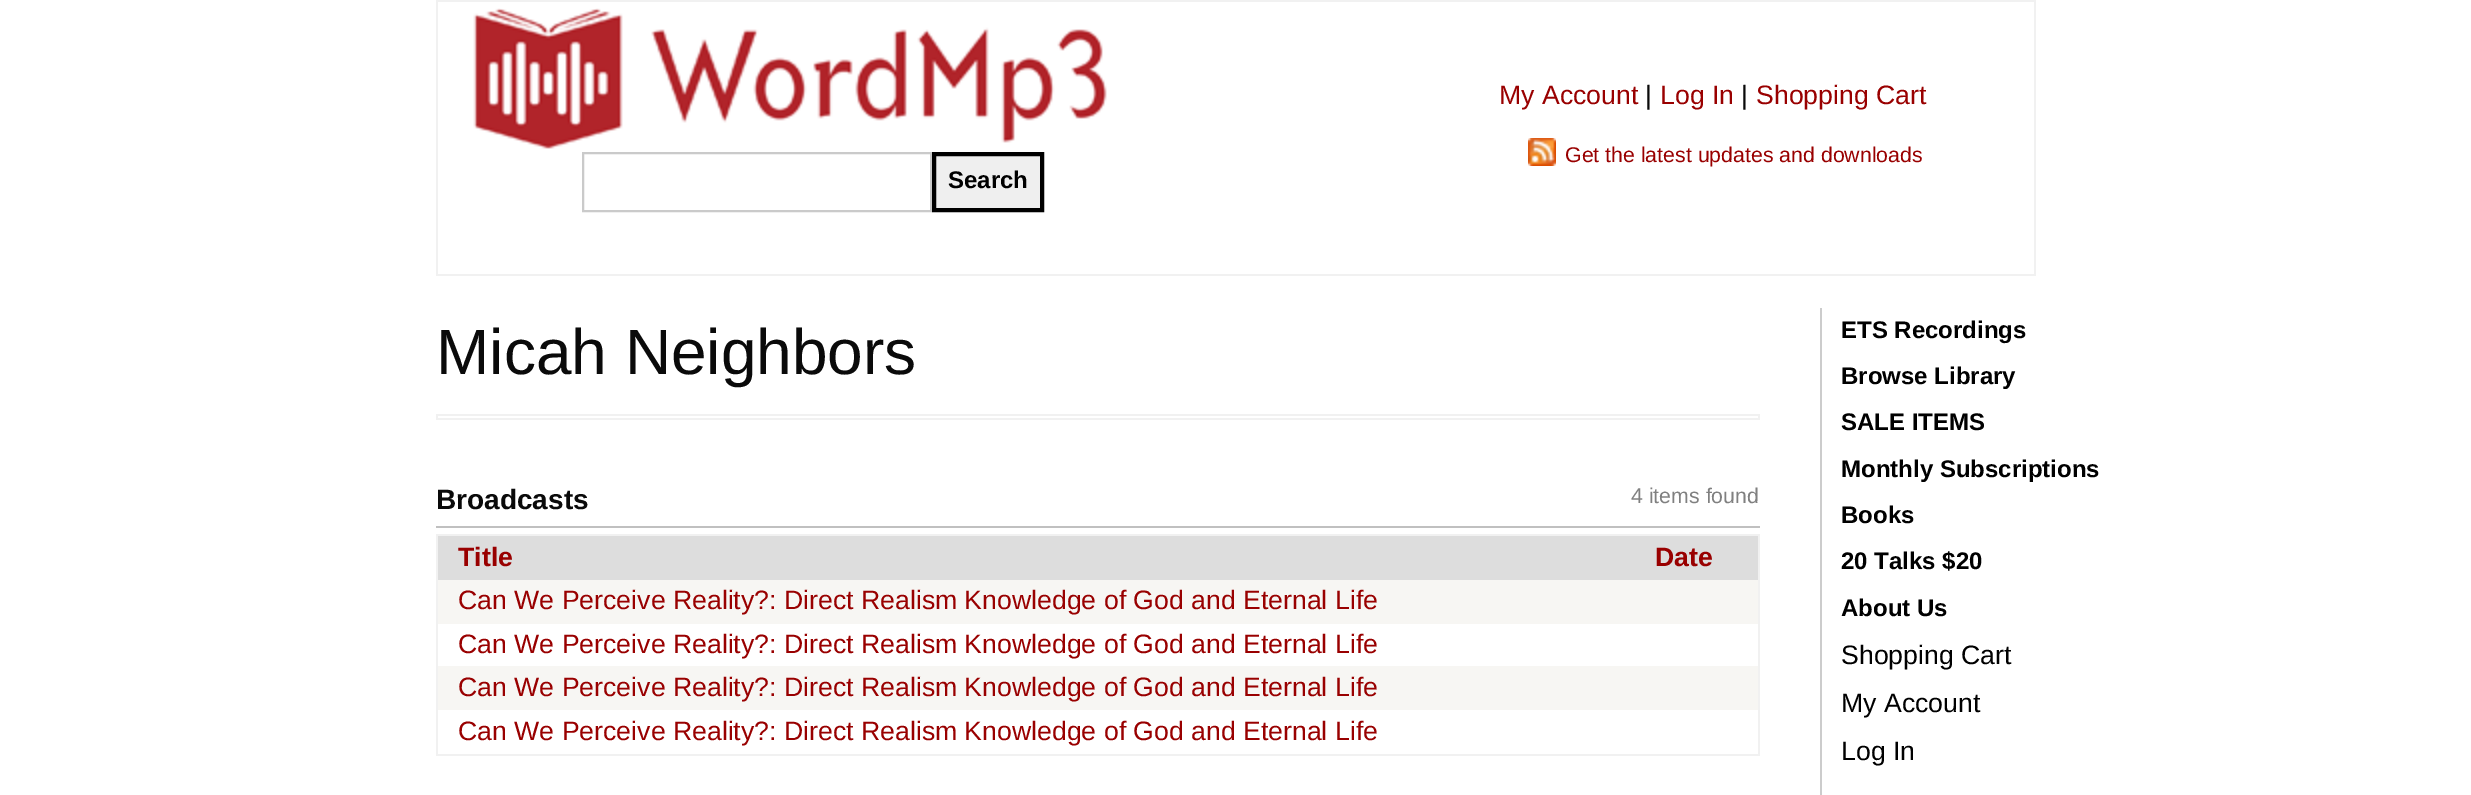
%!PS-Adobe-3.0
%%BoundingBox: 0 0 2471 795
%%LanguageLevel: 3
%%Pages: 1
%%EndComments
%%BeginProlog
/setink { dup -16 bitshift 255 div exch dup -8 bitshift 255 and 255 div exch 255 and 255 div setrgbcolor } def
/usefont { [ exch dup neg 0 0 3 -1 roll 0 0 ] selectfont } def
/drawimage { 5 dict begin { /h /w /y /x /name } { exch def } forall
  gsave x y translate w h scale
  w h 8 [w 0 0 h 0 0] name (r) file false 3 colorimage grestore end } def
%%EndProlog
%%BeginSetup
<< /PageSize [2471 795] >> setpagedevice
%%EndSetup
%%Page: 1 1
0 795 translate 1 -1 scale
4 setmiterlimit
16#FFFFFF setink
0 0 2471 795 rectfill
[
    [436 0 1600 2 16#F1F1F1]
    [2034 0 2 276 16#F1F1F1]
    [436 274 1600 2 16#F1F1F1]
    [436 0 2 276 16#F1F1F1]
] { aload pop setink rectfill } forall
/LiberationSans-Regular 26.65 usefont
16#990000 setink
1499 104 moveto (My Account) show
16#0A0A0A setink
1645 104 moveto (|) show
16#990000 setink
1660 104 moveto (Log In) show
16#0A0A0A setink
1741 104 moveto (|) show
16#990000 setink
1756 104 moveto (Shopping Cart) show
(img1.raw) 1528 138 28 28 drawimage
/LiberationSans-Regular 21.3 usefont
1565 162 moveto (Get the latest updates and downloads) show
(img2.raw) 473 8 634 141 drawimage
16#CACACA setink
2 setlinewidth
583 153 348 58 rectstroke
16#EFEFEF setink
934 154 moveto 1042 154 lineto 1042 210 lineto 934 210 lineto closepath gsave fill grestore
16#000000 setink
4 setlinewidth
stroke
/LiberationSans-Bold 24 usefont
948 188 moveto (Search) show
/LiberationSans-Regular 64 usefont
16#0A0A0A setink
436 374 moveto (Micah Neighbors) show
[
    [436 414 1324 2 16#F1F1F1]
    [1758 414 2 6 16#F1F1F1]
    [436 418 1324 2 16#F1F1F1]
    [436 414 2 6 16#F1F1F1]
    [436 526 1324 2 16#C0C0C0]
] { aload pop setink rectfill } forall
/LiberationSans-Bold 28 usefont
16#0A0A0A setink
436 509 moveto (Broadcasts) show
/LiberationSans-Regular 21.3 usefont
16#808080 setink
1631 503 moveto (4 items found) show
[
    [436 534 1324 2 16#F1F1F1]
    [1758 534 2 222 16#F1F1F1]
    [436 754 1324 2 16#F1F1F1]
    [436 534 2 222 16#F1F1F1]
    [438 536 1320 44 16#DDDDDD]
] { aload pop setink rectfill } forall
/LiberationSans-Bold 26.65 usefont
16#990000 setink
458 566 moveto (Title) show
1655 566 moveto (Date) show
16#F7F6F3 setink
438 580 1320 44 rectfill
/LiberationSans-Regular 26.65 usefont
16#990000 setink
458 609 moveto (Can We Perceive Reality?: Direct Realism Knowledge of God and Eternal Life) show
458 653 moveto (Can We Perceive Reality?: Direct Realism Knowledge of God and Eternal Life) show
16#F7F6F3 setink
438 666 1320 44 rectfill
16#990000 setink
458 696 moveto (Can We Perceive Reality?: Direct Realism Knowledge of God and Eternal Life) show
458 740 moveto (Can We Perceive Reality?: Direct Realism Knowledge of God and Eternal Life) show
16#CCCCCC setink
1820 308 2 487 rectfill
/LiberationSans-Bold 24 usefont
16#000000 setink
[
    [(ETS Recordings) 1841 338]
    [(Browse Library) 1841 384]
    [(SALE ITEMS) 1841 430]
    [(Monthly Subscriptions) 1841 477]
    [(Books) 1841 523]
    [(20 Talks $20) 1841 569]
    [(About Us) 1841 616]
] { aload pop moveto show } forall
/LiberationSans-Regular 26.65 usefont
[
    [(Shopping Cart) 1841 664]
    [(My Account) 1841 712]
    [(Log In) 1841 760]
] { aload pop moveto show } forall
showpage
%%EOF
